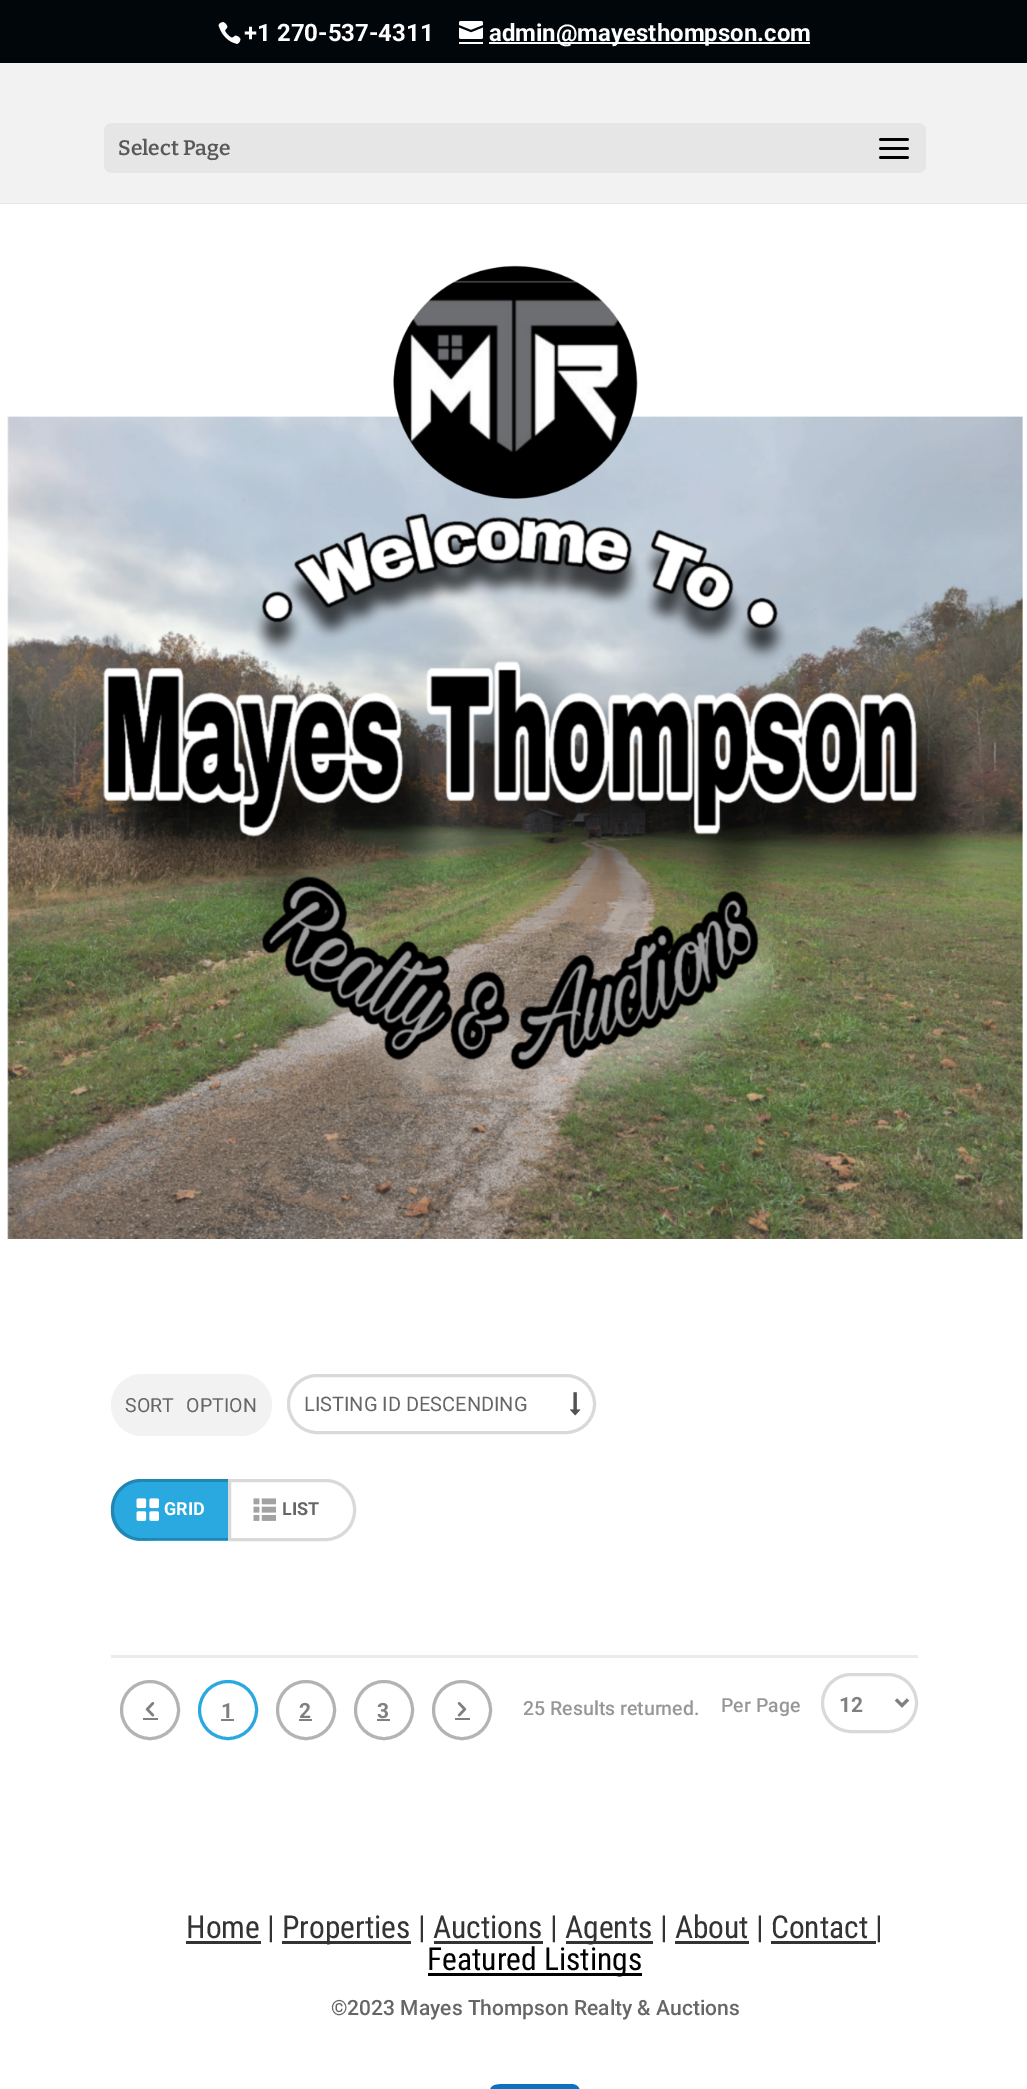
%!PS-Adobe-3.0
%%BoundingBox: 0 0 1027 2089
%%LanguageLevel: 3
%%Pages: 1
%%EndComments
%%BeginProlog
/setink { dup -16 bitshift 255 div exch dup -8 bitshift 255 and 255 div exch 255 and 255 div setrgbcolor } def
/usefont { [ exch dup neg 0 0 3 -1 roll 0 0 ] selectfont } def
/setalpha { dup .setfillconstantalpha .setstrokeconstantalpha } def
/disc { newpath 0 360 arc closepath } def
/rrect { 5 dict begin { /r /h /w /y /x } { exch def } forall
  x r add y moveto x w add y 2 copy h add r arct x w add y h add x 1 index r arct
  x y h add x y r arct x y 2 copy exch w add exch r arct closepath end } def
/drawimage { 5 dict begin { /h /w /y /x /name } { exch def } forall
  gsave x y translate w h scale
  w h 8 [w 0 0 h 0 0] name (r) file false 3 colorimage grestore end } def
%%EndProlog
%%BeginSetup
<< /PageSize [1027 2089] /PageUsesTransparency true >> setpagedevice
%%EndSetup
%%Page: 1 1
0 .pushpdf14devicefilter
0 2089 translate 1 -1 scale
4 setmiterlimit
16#FFFFFF setink
0 0 1027 2089 rectfill
16#01060A setink
0 0 1027 63 rectfill
(img1.raw) 218 22 23 22 drawimage
/Roboto-Bold 24 usefont
16#FFFFFF setink
244 41 moveto (+1 270-537-4311) show
(img2.raw) 459 21 24 18 drawimage
489 42 321 2 rectfill
489 41 moveto (admin@mayesthompson.com) show
459 42 24 2 rectfill
16#E6E6E6 setink
0 202 moveto 0 204 lineto 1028 204 lineto 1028 65 lineto 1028 202 lineto closepath fill
16#F2F2F2 setink
0 63 1027 140 rectfill
16#E6E6E6 setink
104 123 822 50 8 rrect fill
/Bitter-SemiBold 21 usefont
16#595959 setink
118 155 moveto (Select Page) show
(img3.raw) 879 138 30 21 drawimage
(img4.raw) 7 265 1016 974 drawimage
16#F2F2F2 setink
111 1374 161 62 31 rrect fill
/Roboto-Regular 19.5 usefont
16#666666 setink
125 1412 moveto 8 0 32 (SORT OPTION) widthshow
16#D9D9D9 setink
3 setlinewidth
288.5 1375.5 306 57 28.5 rrect stroke
/Roboto-Regular 20 usefont
16#666666 setink
304 1411 moveto (LISTING ID DESCENDING) show
(img5.raw) 570 1392 11 24 drawimage
16#29A9DF setink
141 1479 moveto 228 1479 lineto 228 1541 lineto 141 1541 lineto 124.5 1541 111 1527.5 111 1511 curveto 111 1509 lineto 111 1492.5 124.5 1479 141 1479 curveto closepath fill
0.2 setalpha
16#000000 setink
141 1479 moveto 228 1479 lineto 228 1540 lineto 156 1540 lineto 147 1540 138 1542 129 1538 curveto 99 1526 108 1479 141 1479 curveto closepath 141 1482 moveto 228 1482 lineto 228 1538 lineto 141 1538 lineto 126 1538 114 1525 114 1510 curveto 114 1509 lineto 114 1494 126 1482 141 1482 curveto closepath eofill
1 setalpha
(img6.raw) 136 1498 23 23 drawimage
/Roboto-Bold 18 usefont
16#FFFFFF setink
164 1515 moveto (GRID) show
16#D9D9D9 setink
229.5 1480.5 moveto 326 1480.5 lineto 341.5 1480.5 354.5 1493.5 354.5 1509 curveto 354.5 1511 lineto 354.5 1526.5 341.5 1539.5 326 1539.5 curveto 229.5 1539.5 lineto closepath stroke
(img7.raw) 253 1498 23 23 drawimage
16#666666 setink
282 1515 moveto (LIST) show
16#EBEBEB setink
111 1655 807 3 rectfill
16#B3B3B3 setink
150 1710 28.5 disc stroke
(img8.raw) 145 1702 10 15 drawimage
16#808080 setink
143 1718 15 2 rectfill
16#29A9DF setink
228 1710 28.5 disc stroke
/Roboto-Bold 21 usefont
16#808080 setink
221 1718 moveto (1) show
221 1719 13 2 rectfill
16#B3B3B3 setink
306 1710 28.5 disc stroke
16#808080 setink
299 1718 moveto (2) show
299 1719 13 2 rectfill
16#B3B3B3 setink
384 1710 28.5 disc stroke
16#808080 setink
377 1718 moveto (3) show
377 1719 13 2 rectfill
16#B3B3B3 setink
462 1710 28.5 disc stroke
(img9.raw) 457 1702 10 15 drawimage
16#808080 setink
455 1718 15 2 rectfill
/Roboto-Medium 19.5 usefont
16#979797 setink
523 1715 moveto (25 Results returned.) show
721 1712 moveto (Per Page) show
16#D9D9D9 setink
822.5 1674.5 94 57 28.5 rrect stroke
16#808080 setink
896 1699.5 moveto 902 1705.5 lineto 908 1699.5 lineto stroke
/Roboto-Bold 21 usefont
839 1712 moveto (12) show
16#333333 setink
186 1941 75 3 rectfill
/RobotoCondensed-Regular 31.5 usefont
186 1938 moveto (Home |) show
282 1941 129 3 rectfill
282 1938 moveto (Properties | Auctions |) show
566 1941 87 3 rectfill
565 1938 moveto (Agents | About | Contact |) show
[
    [434 1941 109 3 16#333333]
    [675 1941 74 3 16#333333]
    [771 1941 105 3 16#333333]
    [428 1973 214 3 16#000000]
] { aload pop setink rectfill } forall
427 1970 moveto (Featured Listings) show
/Roboto-Medium 21 usefont
16#666666 setink
331 2015 moveto (©2023 Mayes Thompson Realty & Auctions) show
16#0C71C3 setink
571 2084 moveto 583 2084 581 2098 581 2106 curveto 581 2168 lineto 579 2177 569 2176 562 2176 curveto 543 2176 lineto 543 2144 lineto 555 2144 lineto 557 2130 lineto 543 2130 lineto 543 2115 541 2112 557 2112 curveto 557 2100 lineto 545 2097 530 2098 527 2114 curveto 527 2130 lineto 514 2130 lineto 514 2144 lineto 527 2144 lineto 527 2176 lineto 504 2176 lineto 487 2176 489 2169 489 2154 curveto 489 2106 lineto 489 2084 489 2084 511 2084 curveto closepath fill
.poppdf14devicefilter showpage
%%EOF
